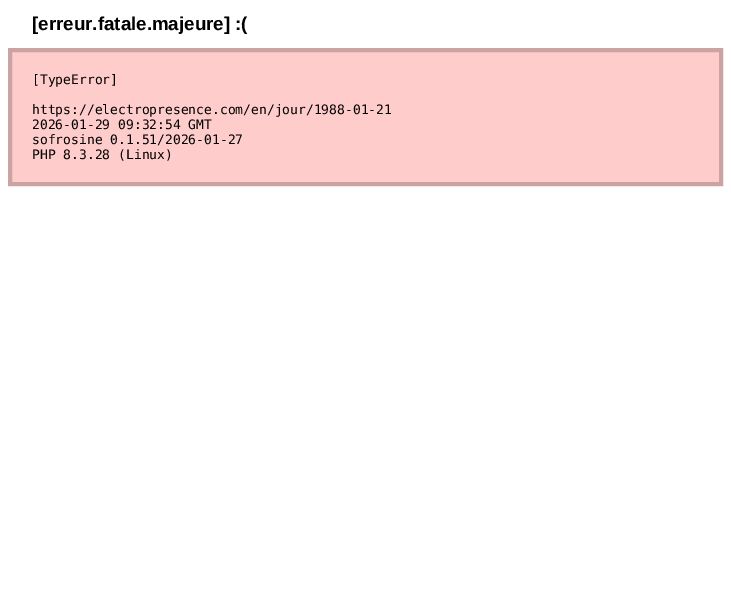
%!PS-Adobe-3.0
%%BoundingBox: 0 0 731 615
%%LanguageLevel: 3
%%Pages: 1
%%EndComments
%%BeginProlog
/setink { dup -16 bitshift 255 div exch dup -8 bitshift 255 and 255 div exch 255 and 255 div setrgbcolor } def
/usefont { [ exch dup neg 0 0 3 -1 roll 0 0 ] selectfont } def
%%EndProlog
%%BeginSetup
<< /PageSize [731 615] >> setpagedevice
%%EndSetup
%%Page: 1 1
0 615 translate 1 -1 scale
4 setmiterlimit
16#FFFFFF setink
0 0 731 615 rectfill
/LiberationSans-Bold 18.75 usefont
16#000000 setink
32 30 moveto ([erreur.fatale.majeure] :\() show
16#FFCCCC setink
10 50 moveto 721 50 lineto 721 184 lineto 10 184 lineto closepath gsave fill grestore
16#CCA3A3 setink
4 setlinewidth
stroke
/DejaVuSansMono-Regular 13 usefont
16#000000 setink
[
    [([TypeError]) 32 84]
    [(https://electropresence.com/en/jour/1988-01-21) 32 114]
    [(2026-01-29 09:32:54 GMT) 32 129]
    [(sofrosine 0.1.51/2026-01-27) 32 144]
    [(PHP 8.3.28 \(Linux\)) 32 159]
] { aload pop moveto show } forall
showpage
%%EOF
